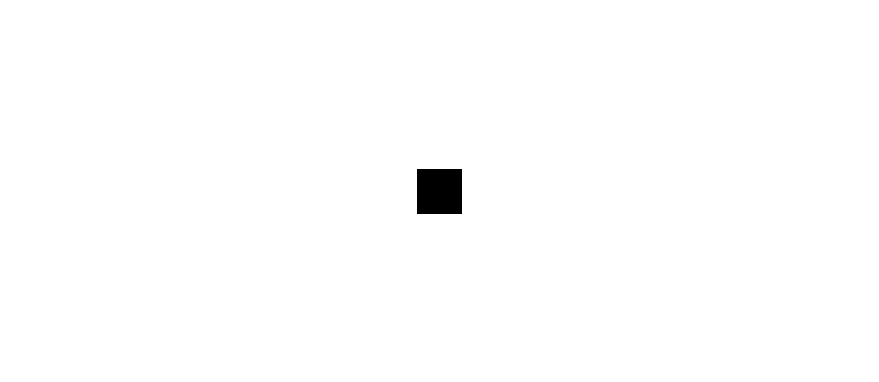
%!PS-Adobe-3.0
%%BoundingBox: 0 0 879 382
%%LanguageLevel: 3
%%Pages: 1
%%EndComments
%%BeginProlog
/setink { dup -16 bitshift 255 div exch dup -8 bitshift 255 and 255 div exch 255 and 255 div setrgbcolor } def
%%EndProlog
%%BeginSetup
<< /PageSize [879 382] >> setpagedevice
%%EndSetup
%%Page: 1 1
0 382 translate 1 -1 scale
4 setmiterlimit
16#FFFFFF setink
0 0 879 382 rectfill
16#000000 setink
417 169 45 45 rectfill
showpage
%%EOF
